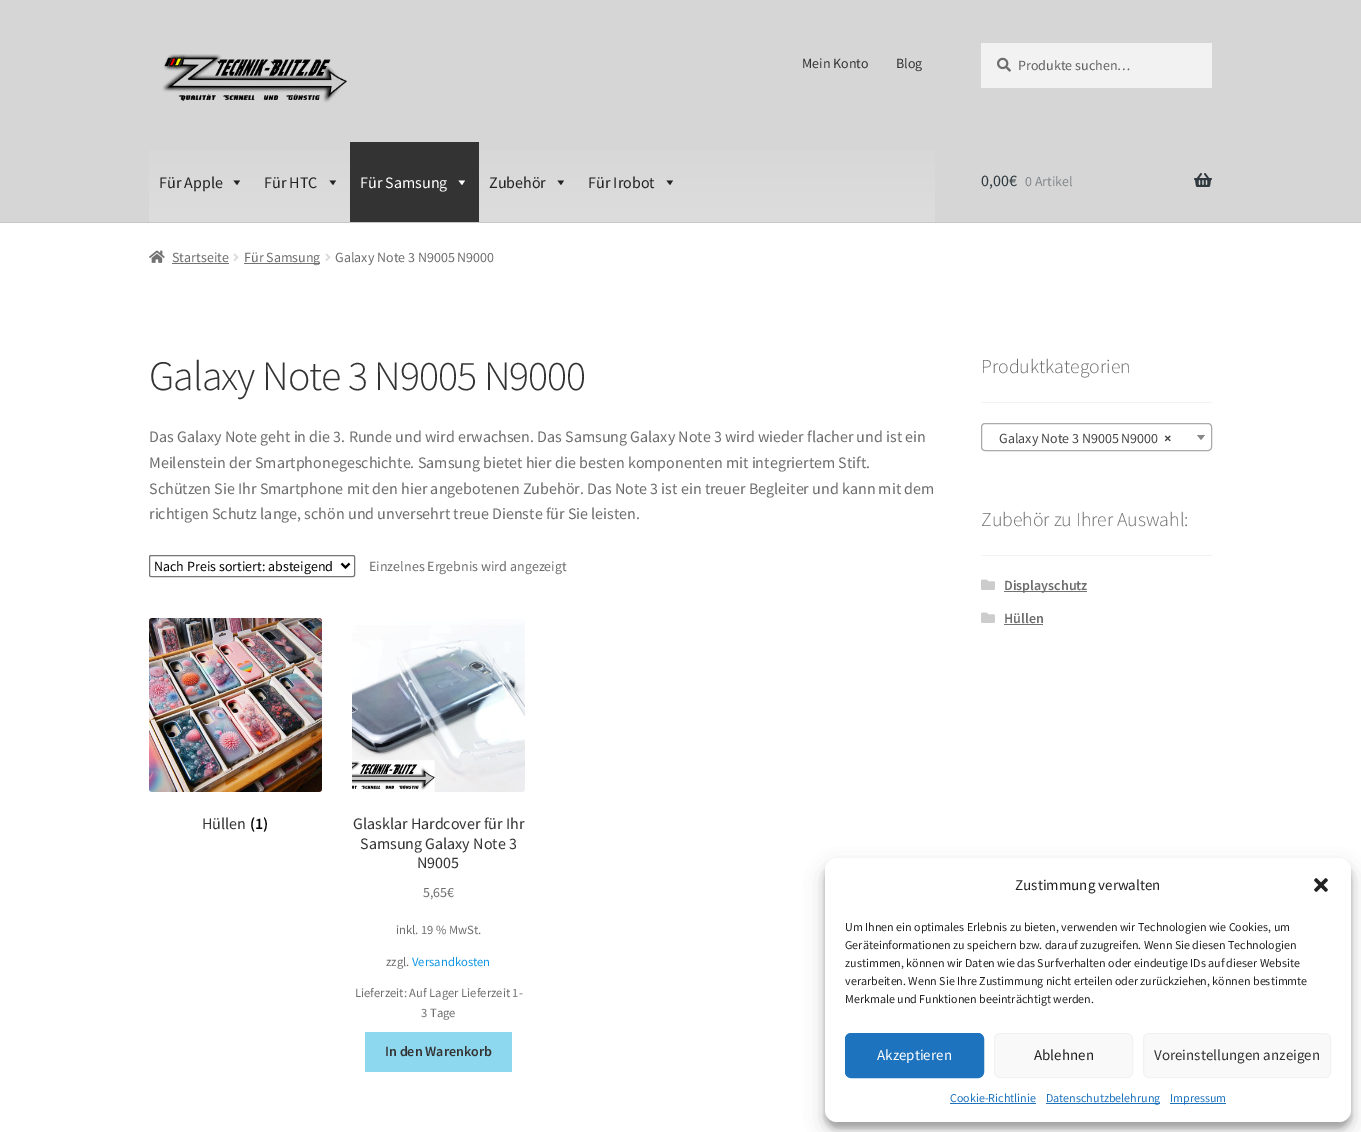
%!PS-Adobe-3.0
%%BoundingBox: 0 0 1361 1132
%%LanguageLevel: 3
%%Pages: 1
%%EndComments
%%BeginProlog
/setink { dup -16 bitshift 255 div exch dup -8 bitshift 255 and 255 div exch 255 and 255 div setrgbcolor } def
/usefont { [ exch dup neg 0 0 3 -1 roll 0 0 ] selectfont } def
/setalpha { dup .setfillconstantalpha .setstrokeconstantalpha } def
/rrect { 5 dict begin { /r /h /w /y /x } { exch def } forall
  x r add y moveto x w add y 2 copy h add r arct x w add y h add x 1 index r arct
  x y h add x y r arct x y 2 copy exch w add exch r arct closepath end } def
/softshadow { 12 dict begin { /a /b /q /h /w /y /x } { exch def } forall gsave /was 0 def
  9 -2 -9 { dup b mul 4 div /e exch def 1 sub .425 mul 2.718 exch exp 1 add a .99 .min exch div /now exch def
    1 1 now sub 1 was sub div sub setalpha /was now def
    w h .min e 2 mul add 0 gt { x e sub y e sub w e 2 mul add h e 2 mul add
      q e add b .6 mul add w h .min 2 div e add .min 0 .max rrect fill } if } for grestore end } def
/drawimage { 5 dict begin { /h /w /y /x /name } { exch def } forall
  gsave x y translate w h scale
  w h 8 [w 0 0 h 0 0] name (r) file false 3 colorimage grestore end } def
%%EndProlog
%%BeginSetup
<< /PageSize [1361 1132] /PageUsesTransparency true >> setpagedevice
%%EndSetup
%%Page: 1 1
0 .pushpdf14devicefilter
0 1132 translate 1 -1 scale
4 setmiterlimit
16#FFFFFF setink
0 0 1361 1132 rectfill
16#D6D6D6 setink
0 0 1361 222 rectfill
16#C7C7C7 setink
0 222 1361 1 rectfill
(img1.raw) 162 54 185 49 drawimage
/SourceSansPro-Regular 14 usefont
16#333333 setink
802 68 moveto (Mein Konto) show
896 68 moveto (Blog) show
16#F2F2F2 setink
981 43 231 45 rectfill
(img2.raw) 997 57 14 15 drawimage
16#616161 setink
1018 70 moveto (Produkte suchen…) show
gsave 149 150 moveto 935 150 lineto 935 222 lineto 149 222 lineto closepath clip newpath
<< /ShadingType 2 /ColorSpace /DeviceRGB /Coords [542 142 542 222] /Extend [true true] /Function << /FunctionType 2 /Domain [0 1] /C0 [0.847 0.847 0.847] /C1 [0.867 0.867 0.867] /N 1 >> >> shfill grestore
/SourceSansPro-Regular 16 usefont
16#222222 setink
159 188 moveto (Für Apple) show
240 180.5 moveto 237 185 lineto 233.5 180.5 lineto closepath fill
264 188 moveto (Für HTC) show
336 180.5 moveto 333 185 lineto 329.5 180.5 lineto closepath fill
16#333333 setink
350 142 129 80 rectfill
16#FFFFFF setink
360 188 moveto (Für Samsung) show
465 180.5 moveto 462 185 lineto 458.5 180.5 lineto closepath fill
16#222222 setink
489 188 moveto (Zubehör) show
564 180.5 moveto 561 185 lineto 557.5 180.5 lineto closepath fill
588 188 moveto (Für Irobot) show
673 180.5 moveto 670 185 lineto 666.5 180.5 lineto closepath fill
16#2F393F setink
981 186 moveto (0,00€) show
/SourceSansPro-Regular 14 usefont
16#83888B setink
1025 186 moveto (0 Artikel) show
(img3.raw) 1194 173 18 14 drawimage
(img4.raw) 149 250 16 13 drawimage
16#6D6D6D setink
172 262 moveto (Startseite) show
16#727272 setink
172 263 57 1 rectfill
(img5.raw) 233 253 6 8 drawimage
244 263 76 1 rectfill
16#6D6D6D setink
244 262 moveto (Für Samsung) show
(img5.raw) 325 253 6 8 drawimage
335 262 moveto (Galaxy Note 3 N9005 N9000) show
/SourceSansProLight-Light 41.9 usefont
16#333333 setink
149 390 moveto -1 0 (Galaxy Note 3 N9005 N9000) ashow
/SourceSansPro-Regular 16 usefont
16#6D6D6D setink
[
    [(Das Galaxy Note geht in die 3. Runde und wird erwachsen. Das Samsung Galaxy Note 3 wird wieder flacher und ist ein) 149 442]
    [(Meilenstein der Smartphonegeschichte. Samsung bietet hier die besten komponenten mit integriertem Stift.) 149 468]
    [(Schützen Sie Ihr Smartphone mit den hier angebotenen Zubehör. Das Note 3 ist ein treuer Begleiter und kann mit dem) 149 494]
    [(richtigen Schutz lange, schön und unversehrt treue Dienste für Sie leisten.) 149 519]
] { aload pop moveto show } forall
16#767676 setink
149.5 555.5 205 21 1.5 rrect stroke
16#000000 setink
2 setlinewidth
341.5 563.5 moveto 345.5 567.5 lineto 349.5 563.5 lineto stroke
/SourceSansPro-Regular 14 usefont
154 571 moveto (Nach Preis sortiert: absteigend) show
16#6D6D6D setink
369 571 moveto (Einzelnes Ergebnis wird angezeigt) show
(img6.raw) 149 618 173 174 drawimage
/SourceSansPro-Regular 16 usefont
16#333333 setink
202 829 moveto (Hüllen) show
/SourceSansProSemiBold-SemiBold 16 usefont
16#000000 setink
250 829 moveto (\(1\)) show
(img7.raw) 352 619 173 173 drawimage
/SourceSansPro-Regular 16 usefont
16#333333 setink
[
    [(Glasklar Hardcover für Ihr) 353 829]
    [(Samsung Galaxy Note 3) 360 849]
    [(N9005) 417 868]
] { aload pop moveto show } forall
/SourceSansPro-Regular 14 usefont
16#6D6D6D setink
423 897 moveto (5,65€) show
/SourceSansPro-Regular 12.6 usefont
396 934 moveto (inkl. 19 % MwSt.) show
386 966 moveto (zzgl.) show
16#0F95E2 setink
412 966 moveto (Versandkosten) show
16#6D6D6D setink
355 997 moveto (Lieferzeit: Auf Lager Lieferzeit 1-) show
421 1017 moveto (3 Tage) show
16#8DD8EF setink
365 1032 147 40 rectfill
/SourceSansProSemiBold-SemiBold 14 usefont
16#333333 setink
385 1056 moveto (In den Warenkorb) show
16#F2F2F2 setink
981 402 231 1 rectfill
/SourceSansProLight-Light 19.75 usefont
16#6D6D6D setink
981 373 moveto (Produktkategorien) show
16#AAAAAA setink
1 setlinewidth
981.5 423.5 230 27 3.5 rrect stroke
/SourceSansPro-Regular 14 usefont
16#444444 setink
999 443 moveto (Galaxy Note 3 N9005 N9000) show
/SourceSansPro-Bold 14 usefont
1164 443 moveto (×) show
16#888888 setink
1197 435 moveto 1205 435 lineto 1201 440 lineto closepath fill
16#F2F2F2 setink
981 555 231 1 rectfill
/SourceSansProLight-Light 19.75 usefont
16#6D6D6D setink
981 526 moveto (Zubehör zu Ihrer Auswahl:) show
(img8.raw) 981 579 14 11 drawimage
16#727272 setink
1004 591 83 1 rectfill
/SourceSansProSemiBold-SemiBold 14 usefont
16#6D6D6D setink
1004 590 moveto (Displayschutz) show
(img8.raw) 981 612 14 11 drawimage
1004 623 moveto (Hüllen) show
16#727272 setink
1004 624 39 1 rectfill
16#000000 setink
825 864 526 264 12 3 0.23 softshadow
825 868 526 264 12 10 0.19 softshadow
16#FFFFFF setink
825 858 526 264 12 rrect fill
/SourceSansPro-Regular 15 usefont
16#222222 setink
1015 890 moveto (Zustimmung verwalten) show
(img9.raw) 1314 878 14 14 drawimage
/SourceSansPro-Regular 12 usefont
[
    [(Um Ihnen ein optimales Erlebnis zu bieten, verwenden wir Technologien wie Cookies, um) 845 931]
    [(Geräteinformationen zu speichern bzw. darauf zuzugreifen. Wenn Sie diesen Technologien) 845 949]
    [(zustimmen, können wir Daten wie das Surfverhalten oder eindeutige IDs auf dieser Website) 845 967]
    [(verarbeiten. Wenn Sie Ihre Zustimmung nicht erteilen oder zurückziehen, können bestimmte) 845 985]
    [(Merkmale und Funktionen beeinträchtigt werden.) 845 1003]
] { aload pop moveto show } forall
16#1E73BE setink
845.5 1033.5 138 44 5.5 rrect gsave fill grestore
stroke
/SourceSansPro-Regular 15 usefont
16#FFFFFF setink
877 1060 moveto (Akzeptieren) show
16#F9F9F9 setink
994.5 1033.5 138 44 5.5 rrect gsave fill grestore
16#F2F2F2 setink
stroke
16#222222 setink
1034 1060 moveto (Ablehnen) show
16#F9F9F9 setink
1143.5 1033.5 187 44 5.5 rrect gsave fill grestore
16#F2F2F2 setink
stroke
16#333333 setink
1154 1060 moveto (Voreinstellungen anzeigen) show
/SourceSansPro-Regular 12 usefont
16#1E73BE setink
950 1102 moveto (Cookie-Richtlinie) show
950 1103 86 1 rectfill
1046 1103 114 1 rectfill
1046 1102 moveto (Datenschutzbelehrung) show
1170 1103 56 1 rectfill
1170 1102 moveto (Impressum) show
.poppdf14devicefilter showpage
%%EOF
